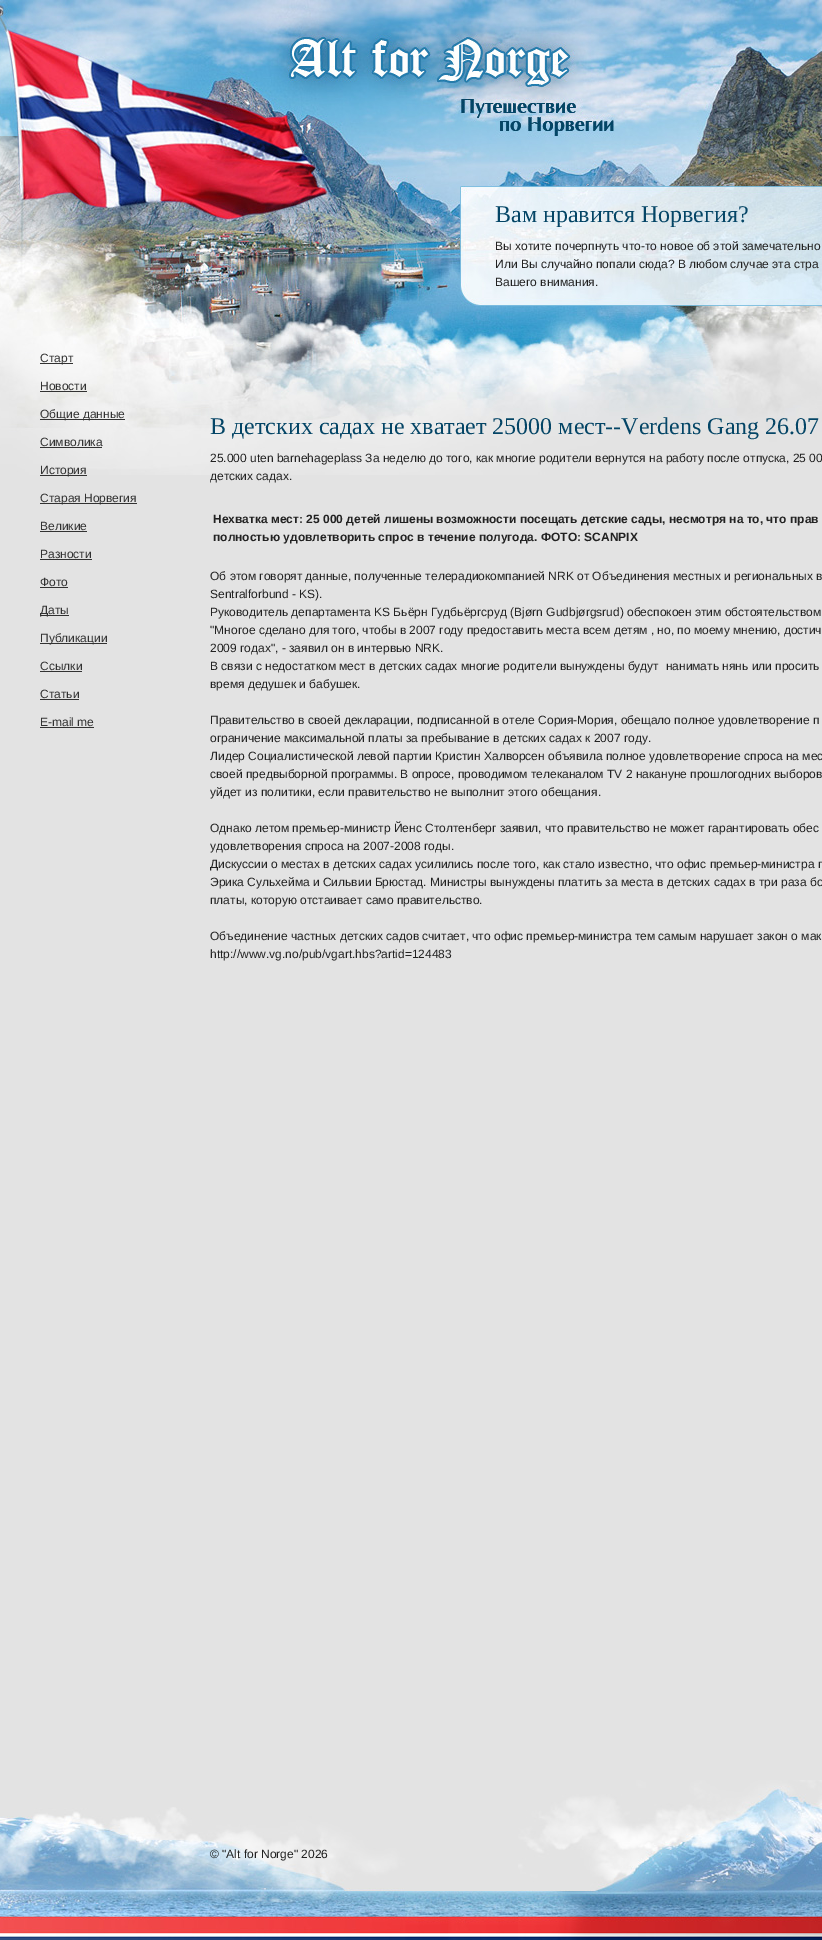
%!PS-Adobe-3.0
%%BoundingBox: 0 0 822 1940
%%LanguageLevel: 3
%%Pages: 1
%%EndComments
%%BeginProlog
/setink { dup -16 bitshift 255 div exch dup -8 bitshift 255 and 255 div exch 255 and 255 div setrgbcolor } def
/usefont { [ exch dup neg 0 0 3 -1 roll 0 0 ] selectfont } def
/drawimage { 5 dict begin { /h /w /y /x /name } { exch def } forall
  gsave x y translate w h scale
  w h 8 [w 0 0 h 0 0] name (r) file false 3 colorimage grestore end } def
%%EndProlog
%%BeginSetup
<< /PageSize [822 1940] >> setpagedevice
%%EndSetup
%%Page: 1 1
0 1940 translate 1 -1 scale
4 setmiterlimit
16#E3E3E3 setink
0 0 822 1940 rectfill
(img1.raw) 0 0 822 475 drawimage
(img2.raw) 263 10 360 130 drawimage
(img3.raw) 460 186 362 120 drawimage
/LiberationSerif-Regular 24 usefont
16#044566 setink
495 222 moveto (Вам нравится Норвегия?) show
/LiberationSans-Regular 12 usefont
16#222222 setink
[
    [(Вы хотите почерпнуть что-то новое об этой замечательно) 495 250]
    [(Или Вы случайно попали сюда? В любом случае эта стра) 495 268]
    [(Вашего внимания.) 495 286]
] { aload pop moveto show } forall
16#323232 setink
40 363 33 1 rectfill
40 362 moveto (Старт) show
40 390 moveto (Новости) show
40 391 47 1 rectfill
40 419 85 1 rectfill
40 418 moveto (Общие данные) show
40 446 moveto (Символика) show
40 447 62 1 rectfill
40 475 47 1 rectfill
40 474 moveto (История) show
40 503 97 1 rectfill
40 502 moveto (Старая Норвегия) show
40 530 moveto (Великие) show
40 531 47 1 rectfill
40 558 moveto (Разности) show
40 559 52 1 rectfill
40 586 moveto (Фото) show
40 587 28 1 rectfill
40 615 29 1 rectfill
40 614 moveto (Даты) show
40 643 67 1 rectfill
40 642 moveto (Публикации) show
40 670 moveto (Ссылки) show
40 671 42 1 rectfill
40 698 moveto (Статьи) show
40 699 39 1 rectfill
40 726 moveto (E-mail me) show
40 727 54 1 rectfill
/LiberationSerif-Regular 24 usefont
16#044566 setink
210 434 moveto (В детских садах не хватает 25000 мест--Verdens Gang 26.07) show
/LiberationSans-Regular 12 usefont
16#222222 setink
210 462 moveto (25.000 uten barnehageplass За неделю до того, как многие родители вернутся на работу после отпуска, 25 00) show
210 480 moveto (детских садах.) show
/LiberationSans-Bold 12 usefont
213 523 moveto (Нехватка мест: 25 000 детей лишены возможности посещать детские сады, несмотря на то, что прав) show
213 541 moveto (полностью удовлетворить спрос в течение полугода. ФОТО: SCANPIX) show
/LiberationSans-Regular 12 usefont
[
    [(Об этом говорят данные, полученные телерадиокомпанией NRK от Объединения местных и региональных в) 210 580]
    [(Sentralforbund - KS\).) 210 598]
    [(Руководитель департамента KS Бьёрн Гудбьёргсруд \(Bjørn Gudbjørgsrud\) обеспокоен этим обстоятельством) 210 616]
    [("Многое сделано для того, чтобы в 2007 году предоставить места всем детям , но, по моему мнению, достич) 210 634]
    [(2009 годах", - заявил он в интервью NRK.) 210 652]
    [(В связи с недостатком мест в детских садах многие родители вынуждены будут  нанимать нянь или просить) 210 670]
    [(время дедушек и бабушек.) 210 688]
    [(Правительство в своей декларации, подписанной в отеле Сория-Мория, обещало полное удовлетворение п) 210 724]
    [(ограничение максимальной платы за пребывание в детских садах к 2007 году.) 210 742]
    [(Лидер Социалистической левой партии Кристин Халворсен объявила полное удовлетворение спроса на мес) 210 760]
    [(своей предвыборной программы. В опросе, проводимом телеканалом TV 2 накануне прошлогодних выборов) 210 778]
    [(уйдет из политики, если правительство не выполнит этого обещания.) 210 796]
    [(Однако летом премьер-министр Йенс Столтенберг заявил, что правительство не может гарантировать обес) 210 832]
    [(удовлетворения спроса на 2007-2008 годы.) 210 850]
    [(Дискуссии о местах в детских садах усилились после того, как стало известно, что офис премьер-министра п) 210 868]
    [(Эрика Сульхейма и Сильвии Брюстад. Министры вынуждены платить за места в детских садах в три раза бо) 210 886]
    [(платы, которую отстаивает само правительство.) 210 904]
    [(Объединение частных детских садов считает, что офис премьер-министра тем самым нарушает закон о мак) 210 940]
    [(http://www.vg.no/pub/vgart.hbs?artid=124483) 210 958]
] { aload pop moveto show } forall
(img4.raw) 405 1891 113 49 drawimage
(img5.raw) 0 1807 405 133 drawimage
(img6.raw) 518 1780 304 160 drawimage
210 1858 moveto (© "Alt for Norge" 2026) show
showpage
%%EOF
